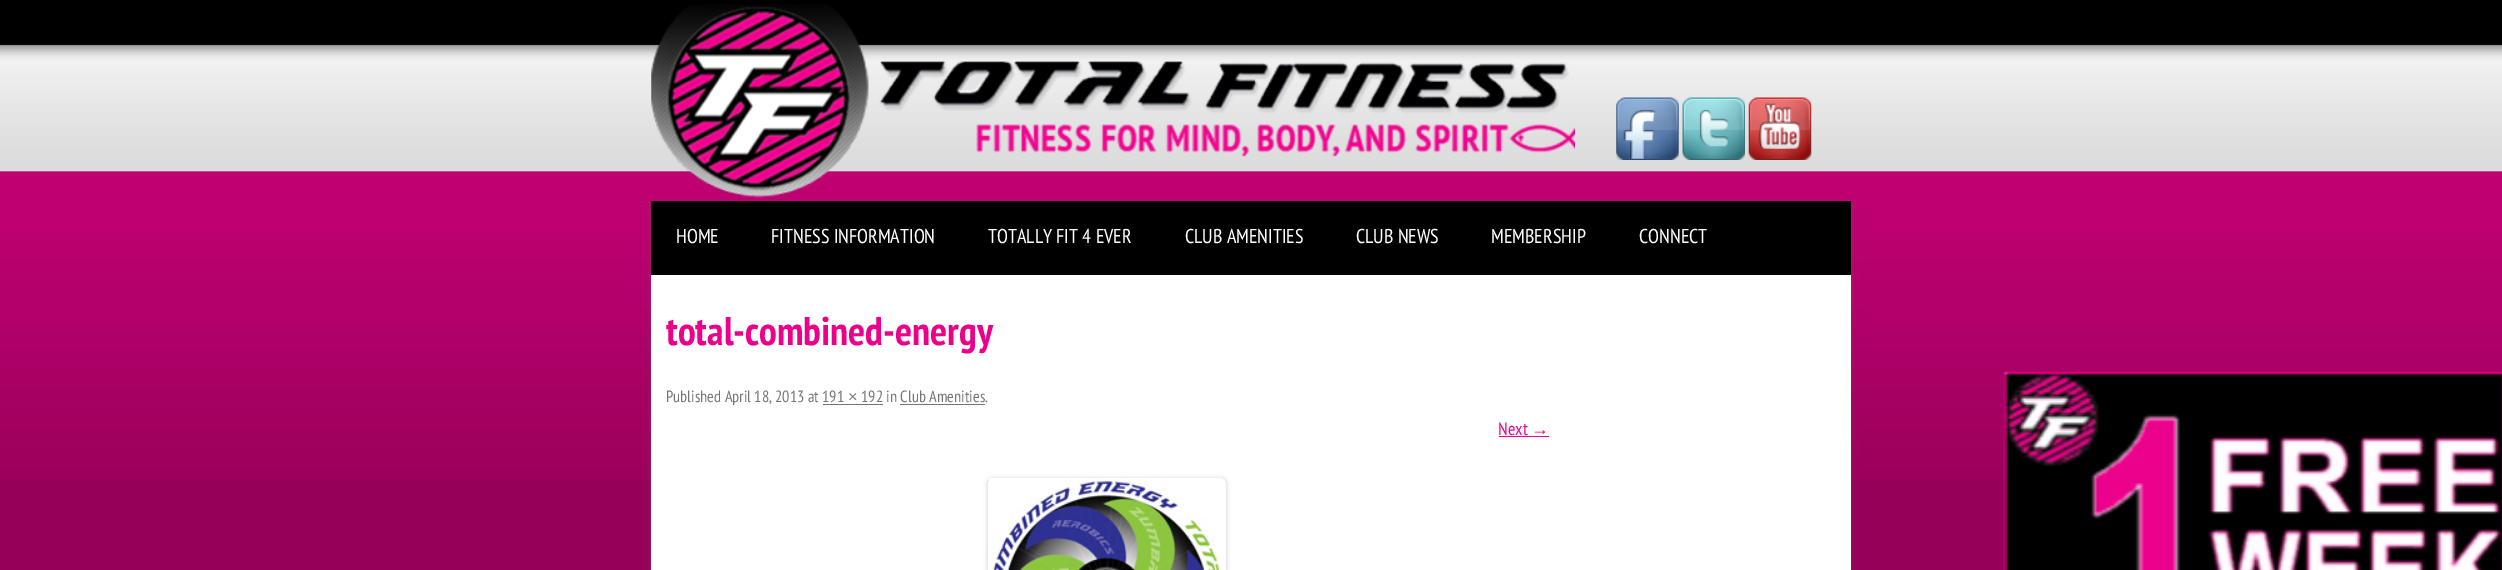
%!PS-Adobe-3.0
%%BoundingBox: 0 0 2502 570
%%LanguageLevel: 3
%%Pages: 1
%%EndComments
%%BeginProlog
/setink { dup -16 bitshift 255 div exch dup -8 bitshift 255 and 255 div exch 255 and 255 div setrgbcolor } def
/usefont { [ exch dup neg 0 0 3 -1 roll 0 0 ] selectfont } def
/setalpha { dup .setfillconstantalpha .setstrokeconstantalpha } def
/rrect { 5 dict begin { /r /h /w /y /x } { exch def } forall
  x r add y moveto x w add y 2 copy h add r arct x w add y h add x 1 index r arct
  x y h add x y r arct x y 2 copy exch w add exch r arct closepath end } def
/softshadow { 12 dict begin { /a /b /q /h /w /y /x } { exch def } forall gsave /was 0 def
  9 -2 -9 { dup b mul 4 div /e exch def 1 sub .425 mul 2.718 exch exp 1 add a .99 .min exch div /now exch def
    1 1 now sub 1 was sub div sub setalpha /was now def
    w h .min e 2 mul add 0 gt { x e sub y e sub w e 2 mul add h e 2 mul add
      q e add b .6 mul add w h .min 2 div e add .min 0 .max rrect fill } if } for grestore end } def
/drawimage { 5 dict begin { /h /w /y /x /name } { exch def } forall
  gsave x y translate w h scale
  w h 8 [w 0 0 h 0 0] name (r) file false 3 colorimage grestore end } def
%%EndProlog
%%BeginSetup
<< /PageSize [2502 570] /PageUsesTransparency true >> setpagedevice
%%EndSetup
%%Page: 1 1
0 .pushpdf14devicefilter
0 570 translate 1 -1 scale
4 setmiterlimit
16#970058 setink
0 0 2502 570 rectfill
(img1.raw) 0 0 2502 480 drawimage
(img2.raw) 651 4 924 194 drawimage
(img3.raw) 1616 97 63 63 drawimage
(img4.raw) 1682 97 63 63 drawimage
(img5.raw) 1748 97 64 63 drawimage
16#646464 setink
651 204 1200 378 0 4 0.3 softshadow
16#FFFFFF setink
651 275 1200 295 rectfill
16#000000 setink
651 201 1200 74 rectfill
/PTSansNarrow-Regular 20 usefont
16#FFFFFF setink
[
    [(HOME) 676 243]
    [(FITNESS INFORMATION) 771 243]
    [(TOTALLY FIT 4 EVER) 988 243]
    [(CLUB AMENITIES) 1185 243]
    [(CLUB NEWS) 1356 243]
    [(MEMBERSHIP) 1491 243]
    [(CONNECT) 1639 243]
] { aload pop moveto show } forall
/PTSansNarrow-Bold 40 usefont
16#EC008B setink
666 345 moveto (total-combined-energy) show
/PTSansNarrow-Regular 16.25 usefont
16#757575 setink
666 402 moveto (Published April 18, 2013 at 191) show
/LiberationSans-Regular 16.25 usefont
848 402 moveto (×) show
823 404 60 1 rectfill
/PTSansNarrow-Regular 16.25 usefont
861 402 moveto (192 in Club Amenities.) show
900 404 85 1 rectfill
/PTSansNarrow-Regular 18 usefont
16#EC008B setink
1498 435 moveto (Next) show
/LiberationSans-Regular 18 usefont
1531 435 moveto (→) show
1499 436 50 1 rectfill
gsave
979 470 moveto 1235 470 lineto 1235 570 lineto 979 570 lineto closepath 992 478 moveto 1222 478 lineto 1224 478 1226 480 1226 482 curveto 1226 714 lineto 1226 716 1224 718 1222 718 curveto 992 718 lineto 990 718 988 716 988 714 curveto 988 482 lineto 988 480 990 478 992 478 curveto closepath eoclip newpath
16#000000 setink
988 479 238 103 4 2.5 0.2 softshadow
grestore
(img6.raw) 989 478 232 92 drawimage
gsave
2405 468 moveto 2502 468 lineto 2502 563 lineto 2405 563 lineto closepath 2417.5 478 moveto 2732.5 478 lineto 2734 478 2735 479 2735 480.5 curveto 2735 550.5 lineto 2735 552 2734 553 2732.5 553 curveto 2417.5 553 lineto 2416 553 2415 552 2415 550.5 curveto 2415 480.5 lineto 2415 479 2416 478 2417.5 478 curveto closepath eoclip newpath
16#808080 setink
2415 478 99 75 2.5 3 1 softshadow
grestore
(img7.raw) 2003 371 499 199 drawimage
.poppdf14devicefilter showpage
%%EOF
